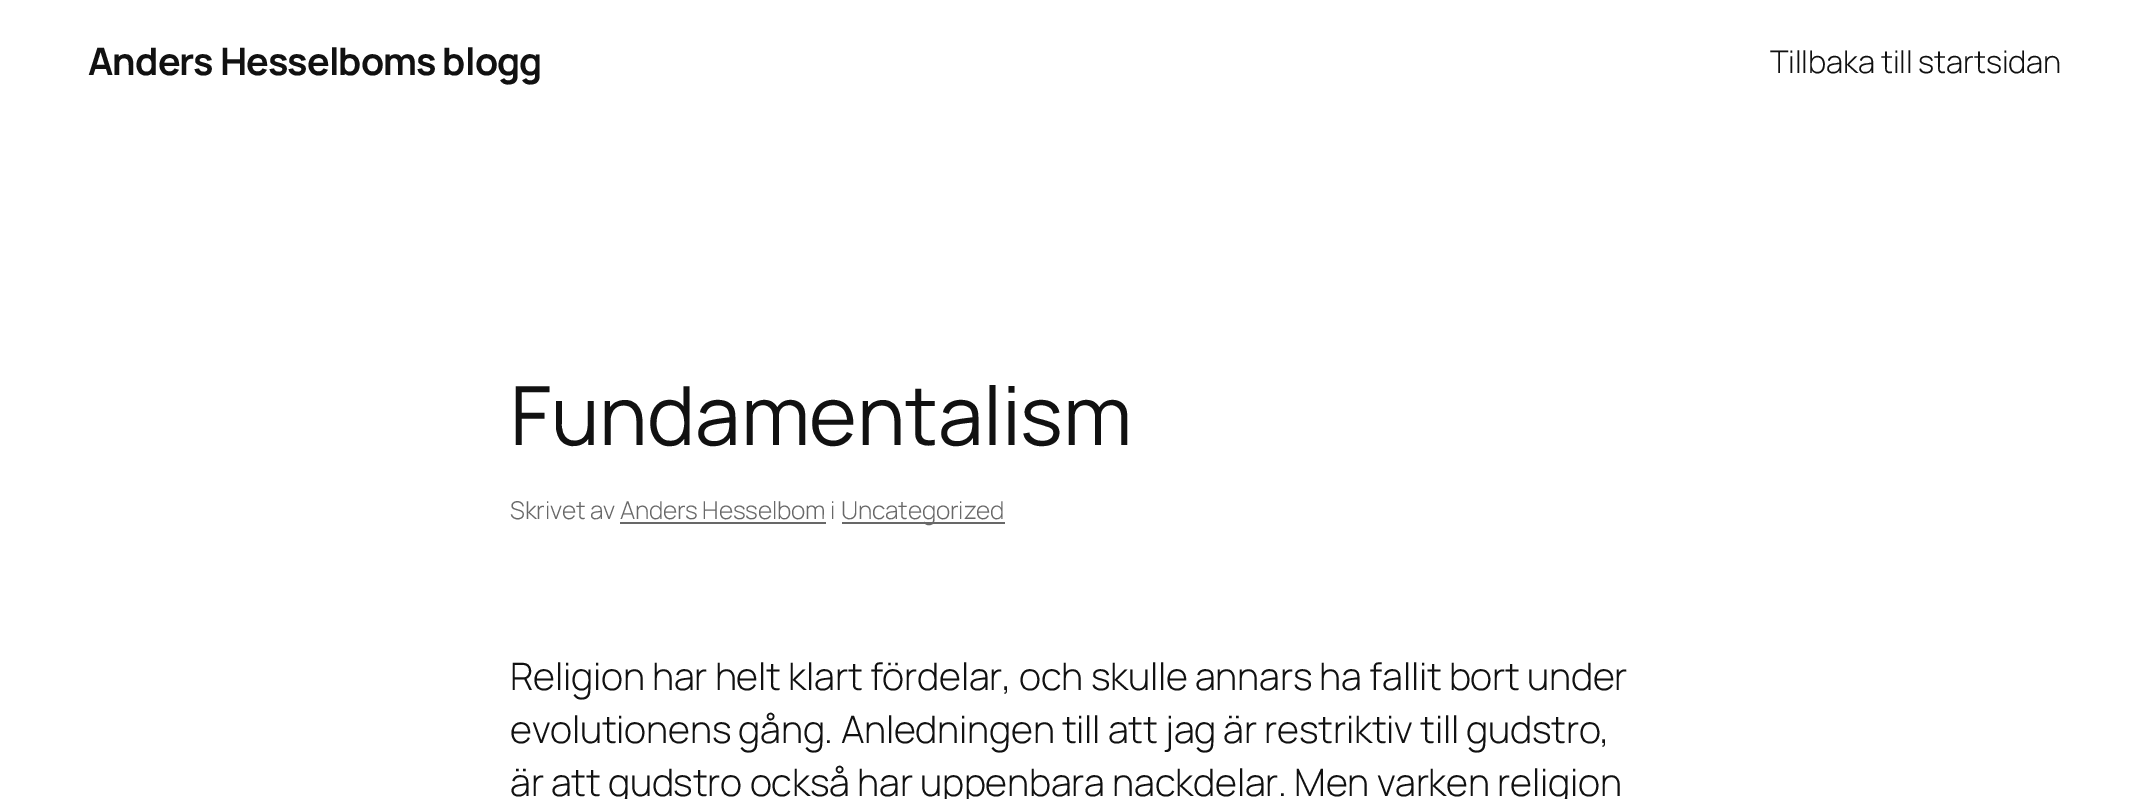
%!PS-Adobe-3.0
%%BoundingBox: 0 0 2149 799
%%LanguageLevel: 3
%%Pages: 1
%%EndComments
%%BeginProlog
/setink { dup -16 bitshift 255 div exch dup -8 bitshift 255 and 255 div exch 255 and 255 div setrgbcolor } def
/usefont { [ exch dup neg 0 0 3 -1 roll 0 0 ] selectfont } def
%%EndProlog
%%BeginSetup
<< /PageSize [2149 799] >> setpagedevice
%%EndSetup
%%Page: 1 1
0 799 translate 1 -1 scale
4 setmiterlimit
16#FFFFFF setink
0 0 2149 799 rectfill
/Manrope-Bold 37.75 usefont
16#111111 setink
88 75 moveto -0.9 0 (Anders Hesselboms blogg) ashow
/Manrope-Light 31.1 usefont
1770 73 moveto -0.18 0 (Tillbaka till startsidan) ashow
/Manrope-Regular 81.5 usefont
510 445 moveto -0.18 0 (Fundamentalism) ashow
/Manrope-Light 24.5 usefont
16#686868 setink
510 519 moveto -0.18 0 (Skrivet av Anders Hesselbom i) ashow
842 522 163 2 rectfill
841 519 moveto -0.18 0 (Uncategorized) ashow
620 522 206 2 rectfill
/Manrope-Light 37.75 usefont
16#111111 setink
510 690 moveto -0.18 0 (Religion har helt klart fördelar, och skulle annars ha fallit bort under) ashow
510 743 moveto -0.18 0 (evolutionens gång. Anledningen till att jag är restriktiv till gudstro,) ashow
510 796 moveto -0.18 0 (är att gudstro också har uppenbara nackdelar. Men varken religion) ashow
showpage
%%EOF
